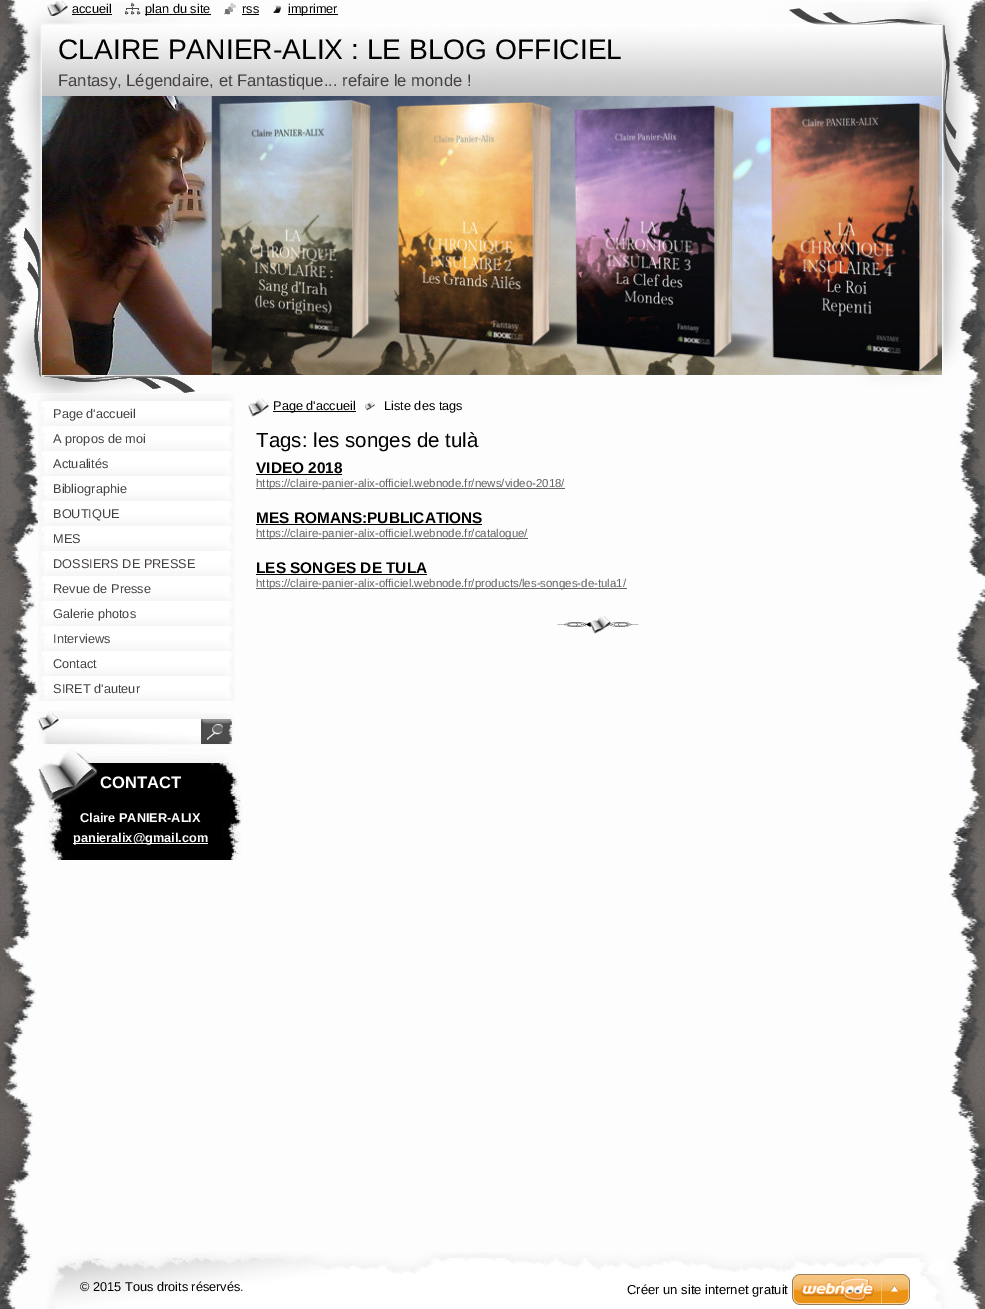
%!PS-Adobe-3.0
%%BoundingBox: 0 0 985 1309
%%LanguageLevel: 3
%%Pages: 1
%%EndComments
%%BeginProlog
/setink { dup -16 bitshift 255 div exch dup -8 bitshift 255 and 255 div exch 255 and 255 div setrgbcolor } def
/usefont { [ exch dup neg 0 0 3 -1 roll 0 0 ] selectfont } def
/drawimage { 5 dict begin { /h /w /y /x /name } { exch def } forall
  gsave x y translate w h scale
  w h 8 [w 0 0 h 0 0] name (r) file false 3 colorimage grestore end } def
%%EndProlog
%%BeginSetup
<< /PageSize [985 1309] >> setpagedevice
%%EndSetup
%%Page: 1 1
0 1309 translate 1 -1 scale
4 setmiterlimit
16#FFFFFF setink
0 0 985 1309 rectfill
(img1.raw) 0 0 985 1309 drawimage
(img6.raw) 12 2 957 391 drawimage
(img2.raw) 47 1 21 15 drawimage
/LiberationSans-Regular 12.75 usefont
16#000000 setink
72 13 moveto (accueil) show
72 14 40 1 rectfill
(img3.raw) 125 2 16 13 drawimage
145 14 66 1 rectfill
145 13 moveto (plan du site) show
(img4.raw) 224 3 12 12 drawimage
242 13 moveto (rss) show
242 14 17 1 rectfill
(img5.raw) 273 5 8 8 drawimage
288 14 50 1 rectfill
288 13 moveto (imprimer) show
/LiberationSans-Regular 28.2 usefont
58 59 moveto (CLAIRE PANIER-ALIX : LE BLOG OFFICIEL) show
/LiberationSans-Regular 16.6 usefont
16#454143 setink
58 86 moveto (Fantasy, Légendaire, et Fantastique... refaire le monde !) show
(img7.raw) 42 96 900 279 drawimage
(img8.raw) 40 393 194 8 drawimage
(img9.raw) 38 401 197 25 drawimage
/LiberationSans-Regular 12.75 usefont
53 418 moveto (Page d'accueil) show
(img9.raw) 38 426 197 25 drawimage
53 443 moveto (A propos de moi) show
(img9.raw) 38 451 197 25 drawimage
53 468 moveto (Actualités) show
(img9.raw) 38 476 197 25 drawimage
53 493 moveto (Bibliographie) show
(img9.raw) 38 501 197 25 drawimage
53 518 moveto (BOUTIQUE) show
(img9.raw) 38 526 197 25 drawimage
53 543 moveto (MES) show
(img9.raw) 38 551 197 25 drawimage
53 568 moveto (DOSSIERS DE PRESSE) show
(img9.raw) 38 576 197 25 drawimage
53 593 moveto (Revue de Presse) show
(img9.raw) 38 601 197 25 drawimage
53 618 moveto (Galerie photos) show
(img9.raw) 38 626 197 25 drawimage
53 643 moveto (Interviews) show
(img9.raw) 38 651 197 25 drawimage
53 668 moveto (Contact) show
(img9.raw) 38 676 197 25 drawimage
53 693 moveto (SIRET d'auteur) show
(img10.raw) 38 711 163 34 drawimage
(img11.raw) 201 713 33 32 drawimage
(img12.raw) 38 748 205 112 drawimage
/LiberationSans-Bold 16.6 usefont
16#FFFFFF setink
100 788 moveto (CONTACT) show
/LiberationSans-Bold 12.75 usefont
80 822 moveto (Claire PANIER-ALIX) show
73 843 135 1 rectfill
73 842 moveto (panieralix@gmail.com) show
(img13.raw) 248 398 21 19 drawimage
16#000000 setink
273 411 83 1 rectfill
/LiberationSans-Regular 12.75 usefont
273 410 moveto (Page d'accueil) show
(img14.raw) 365 401 11 10 drawimage
384 410 moveto (Liste des tags) show
(img15.raw) 557 615 82 19 drawimage
/LiberationSans-Regular 20.5 usefont
256 447 moveto (Tags: les songes de tulà) show
/LiberationSans-Bold 15.4 usefont
256 473 moveto (VIDEO 2018) show
256 474 86 1 rectfill
16#646464 setink
256 488 309 1 rectfill
/LiberationSans-Regular 11.5 usefont
256 487 moveto (https://claire-panier-alix-officiel.webnode.fr/news/video-2018/) show
/LiberationSans-Bold 15.4 usefont
16#000000 setink
256 523 moveto (MES ROMANS:PUBLICATIONS) show
256 524 226 1 rectfill
16#646464 setink
256 538 272 1 rectfill
/LiberationSans-Regular 11.5 usefont
256 537 moveto (https://claire-panier-alix-officiel.webnode.fr/catalogue/) show
/LiberationSans-Bold 15.4 usefont
16#000000 setink
256 573 moveto (LES SONGES DE TULA) show
256 574 171 1 rectfill
16#646464 setink
256 588 371 1 rectfill
/LiberationSans-Regular 11.5 usefont
256 587 moveto (https://claire-panier-alix-officiel.webnode.fr/products/les-songes-de-tula1/) show
(img16.raw) 47 1252 903 57 drawimage
/LiberationSans-Regular 12.75 usefont
16#000000 setink
80 1291 moveto (© 2015 Tous droits réservés.) show
/LiberationSans-Regular 13 usefont
627 1294 moveto (Créer un site internet gratuit) show
(img17.raw) 792 1274 118 31 drawimage
showpage
%%EOF
